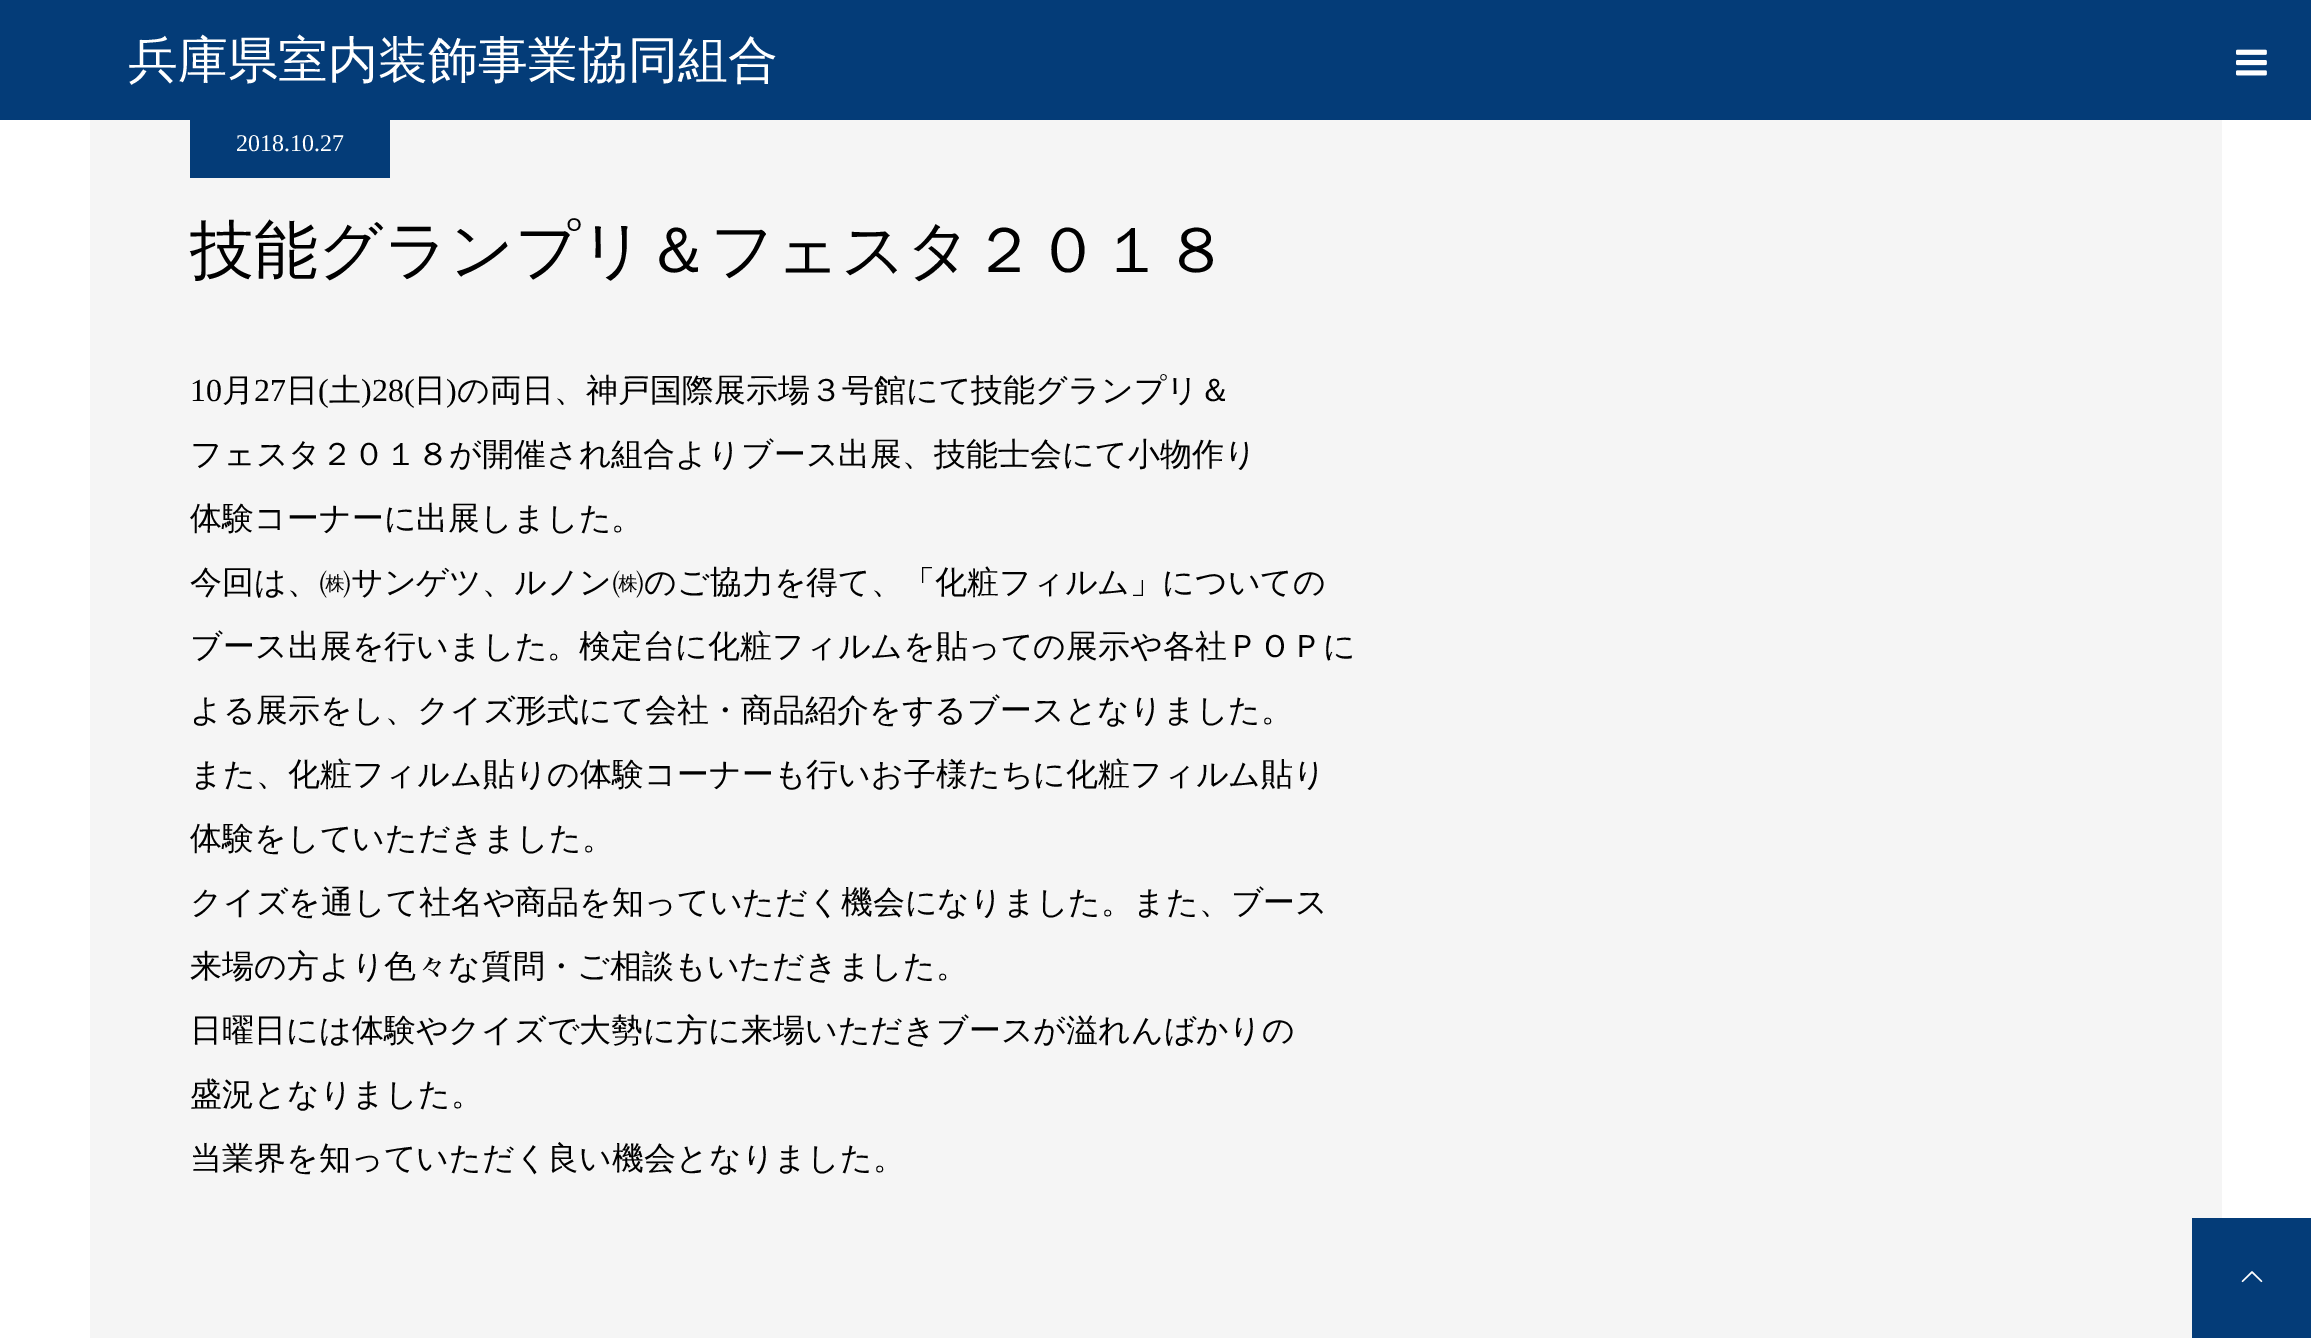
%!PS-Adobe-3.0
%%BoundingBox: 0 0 2311 1338
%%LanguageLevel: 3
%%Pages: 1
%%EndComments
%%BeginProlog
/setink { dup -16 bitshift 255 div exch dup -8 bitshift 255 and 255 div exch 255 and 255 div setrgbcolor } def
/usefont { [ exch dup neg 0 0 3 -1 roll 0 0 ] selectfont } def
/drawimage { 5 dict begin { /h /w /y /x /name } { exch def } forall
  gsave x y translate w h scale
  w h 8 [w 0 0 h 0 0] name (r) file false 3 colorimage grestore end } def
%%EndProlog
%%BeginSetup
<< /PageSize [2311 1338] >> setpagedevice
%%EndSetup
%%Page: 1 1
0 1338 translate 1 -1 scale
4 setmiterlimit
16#FFFFFF setink
0 0 2311 1338 rectfill
16#043C78 setink
0 0 2311 120 rectfill
/WenQuanYiZenHei-Medium 50 usefont
16#FFFFFF setink
128 77 moveto (兵庫県室内装飾事業協同組合) show
(img1.raw) 2236 49 31 27 drawimage
16#F5F5F5 setink
90 120 2132 1218 rectfill
16#043C78 setink
190 120 200 58 rectfill
/LiberationSerif-Regular 24 usefont
16#FFFFFF setink
236 151 moveto (2018.10.27) show
/WenQuanYiZenHei-Medium 64 usefont
16#000000 setink
190 272 moveto (技能グランプリ＆フェスタ２０１８) show
/LiberationSerif-Regular 32 usefont
190 401 moveto (10) show
/WenQuanYiZenHei-Medium 32 usefont
222 401 moveto (月) show
/LiberationSerif-Regular 32 usefont
254 401 moveto (27) show
/WenQuanYiZenHei-Medium 32 usefont
286 401 moveto (日) show
/LiberationSerif-Regular 32 usefont
318 401 moveto (\() show
/WenQuanYiZenHei-Medium 32 usefont
329 401 moveto (土) show
/LiberationSerif-Regular 32 usefont
361 401 moveto (\)28\() show
/WenQuanYiZenHei-Medium 32 usefont
414 401 moveto (日) show
/LiberationSerif-Regular 32 usefont
446 401 moveto (\)) show
/WenQuanYiZenHei-Medium 32 usefont
[
    [(の両日、神戸国際展示場３号館にて技能グランプリ＆) 457 401]
    [(フェスタ２０１８が開催され組合よりブース出展、技能士会にて小物作り) 190 465]
    [(体験コーナーに出展しました。) 190 529]
    [(今回は、㈱サンゲツ、ルノン㈱のご協力を得て、「化粧フィルム」についての) 190 593]
    [(ブース出展を行いました。検定台に化粧フィルムを貼っての展示や各社ＰＯＰに) 190 657]
    [(よる展示をし、クイズ形式にて会社・商品紹介をするブースとなりました。) 190 721]
    [(また、化粧フィルム貼りの体験コーナーも行いお子様たちに化粧フィルム貼り) 190 785]
    [(体験をしていただきました。) 190 849]
    [(クイズを通して社名や商品を知っていただく機会になりました。また、ブース) 190 913]
    [(来場の方より色々な質問・ご相談もいただきました。) 190 977]
    [(日曜日には体験やクイズで大勢に方に来場いただきブースが溢れんばかりの) 190 1041]
    [(盛況となりました。) 190 1105]
    [(当業界を知っていただく良い機会となりました。) 190 1169]
] { aload pop moveto show } forall
16#043C78 setink
2192 1218 119 120 rectfill
(img2.raw) 2241 1271 22 12 drawimage
showpage
%%EOF
